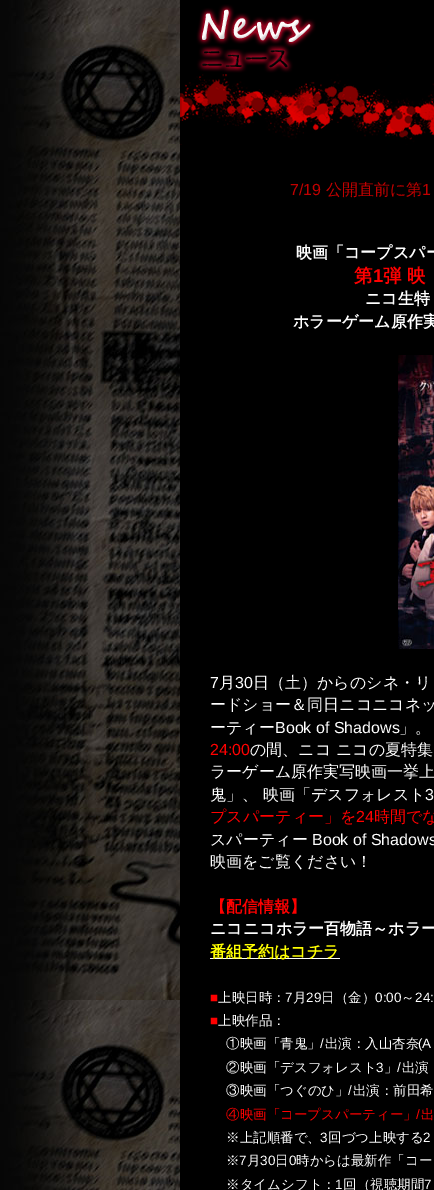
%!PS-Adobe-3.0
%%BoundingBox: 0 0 434 1190
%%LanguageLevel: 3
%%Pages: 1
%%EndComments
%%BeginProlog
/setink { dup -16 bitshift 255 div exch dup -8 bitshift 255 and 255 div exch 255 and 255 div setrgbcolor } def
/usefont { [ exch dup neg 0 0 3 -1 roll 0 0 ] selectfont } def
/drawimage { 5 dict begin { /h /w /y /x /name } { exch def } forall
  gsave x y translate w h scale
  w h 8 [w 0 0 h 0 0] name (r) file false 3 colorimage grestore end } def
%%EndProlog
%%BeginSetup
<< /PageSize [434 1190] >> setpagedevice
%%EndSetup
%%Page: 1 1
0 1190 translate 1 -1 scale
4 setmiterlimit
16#FFFFFF setink
0 0 434 1190 rectfill
(img1.raw) 0 0 180 1190 drawimage
16#000000 setink
180 0 254 1190 rectfill
(img2.raw) 180 4 254 141 drawimage
/LiberationSans-Regular 16 usefont
16#C00000 setink
290 195 moveto (7/19) show
/WenQuanYiZenHei-Medium 16 usefont
326 195 moveto (公開直前に第) show
/LiberationSans-Regular 16 usefont
422 195 moveto (1) show
/WenQuanYiZenHei-Bold 16 usefont
16#FFFFFF setink
296 258 moveto (映画「コープスパー) show
/WenQuanYiZenHei-Bold 18.5 usefont
16#FF0000 setink
354 282 moveto (第) show
/LiberationSans-Bold 18.5 usefont
373 282 moveto (1) show
/WenQuanYiZenHei-Bold 18.5 usefont
383 282 moveto (弾 映) show
/WenQuanYiZenHei-Bold 16 usefont
16#FFFFFF setink
365 304 moveto (ニコ生特) show
293 327 moveto (ホラーゲーム原作実) show
(img3.raw) 398 355 36 294 drawimage
/LiberationSans-Regular 16 usefont
210 688 moveto (7) show
/WenQuanYiZenHei-Medium 16 usefont
219 688 moveto (月) show
/LiberationSans-Regular 16 usefont
235 688 moveto (30) show
/WenQuanYiZenHei-Medium 16 usefont
[
    [(日（土）からのシネ・リ) 253 688]
    [(ードショー＆同日ニコニコネッ) 210 710]
    [(ーティー) 210 733]
] { aload pop moveto show } forall
/LiberationSans-Regular 16 usefont
275 733 moveto (Book of Shadows) show
/WenQuanYiZenHei-Medium 16 usefont
399 733 moveto (」。) show
/LiberationSans-Regular 16 usefont
16#FF0000 setink
210 755 moveto (24:00) show
/WenQuanYiZenHei-Medium 16 usefont
16#FFFFFF setink
[
    [(の間、ニコ ニコの夏特集) 250 755]
    [(ラーゲーム原作実写映画一挙上) 210 777]
    [(鬼」、 映画「デスフォレスト) 210 800]
] { aload pop moveto show } forall
/LiberationSans-Regular 16 usefont
425 800 moveto (3) show
/WenQuanYiZenHei-Medium 16 usefont
16#FF0000 setink
210 822 moveto (プスパーティー」を) show
/LiberationSans-Regular 16 usefont
356 822 moveto (24) show
/WenQuanYiZenHei-Medium 16 usefont
374 822 moveto (時間でな) show
16#FFFFFF setink
210 845 moveto (スパーティー) show
/LiberationSans-Regular 16 usefont
312 845 moveto (Book of Shadows) show
/WenQuanYiZenHei-Medium 16 usefont
210 867 moveto (映画をご覧ください！) show
/WenQuanYiZenHei-Bold 16 usefont
16#FF0000 setink
210 912 moveto (【配信情報】) show
16#FFFFFF setink
210 934 moveto (ニコニコホラー百物語～ホラー) show
210 958 130 1 rectfill
16#FFFF00 setink
210 957 moveto (番組予約はコチラ) show
/LiberationSans-Regular 13.5 usefont
16#FF0000 setink
210 1002 moveto (■) show
/WenQuanYiZenHei-Medium 13.5 usefont
16#FFFFFF setink
218 1002 moveto (上映日時：) show
/LiberationSans-Regular 13.5 usefont
285 1002 moveto (7) show
/WenQuanYiZenHei-Medium 13.5 usefont
293 1002 moveto (月) show
/LiberationSans-Regular 13.5 usefont
306 1002 moveto (29) show
/WenQuanYiZenHei-Medium 13.5 usefont
321 1002 moveto (日（金）) show
/LiberationSans-Regular 13.5 usefont
375 1002 moveto (0:00) show
/WenQuanYiZenHei-Medium 13.5 usefont
401 1002 moveto (～) show
/LiberationSans-Regular 13.5 usefont
415 1002 moveto (24:) show
16#FF0000 setink
210 1025 moveto (■) show
/WenQuanYiZenHei-Medium 13.5 usefont
16#FFFFFF setink
218 1025 moveto (上映作品：) show
226 1048 moveto (①映画「青鬼」 出演：入山杏奈) show
/LiberationSans-Regular 13.5 usefont
320 1048 moveto (/) show
418 1048 moveto (\(A) show
/WenQuanYiZenHei-Medium 13.5 usefont
226 1072 moveto (②映画「デスフォレスト) show
/LiberationSans-Regular 13.5 usefont
376 1072 moveto (3) show
/WenQuanYiZenHei-Medium 13.5 usefont
384 1072 moveto (」 出演) show
/LiberationSans-Regular 13.5 usefont
397 1072 moveto (/) show
/WenQuanYiZenHei-Medium 13.5 usefont
226 1095 moveto (③映画「つぐのひ」 出演：前田希) show
/LiberationSans-Regular 13.5 usefont
348 1095 moveto (/) show
/WenQuanYiZenHei-Medium 13.5 usefont
16#FF0000 setink
226 1119 moveto (④映画「コープスパーティー」 出) show
/LiberationSans-Regular 13.5 usefont
416 1119 moveto (/) show
/WenQuanYiZenHei-Medium 13.5 usefont
16#FFFFFF setink
226 1142 moveto (※上記順番で、) show
/LiberationSans-Regular 13.5 usefont
320 1142 moveto (3) show
/WenQuanYiZenHei-Medium 13.5 usefont
328 1142 moveto (回づつ上映する) show
/LiberationSans-Regular 13.5 usefont
423 1142 moveto (2) show
/WenQuanYiZenHei-Medium 13.5 usefont
226 1165 moveto (※) show
/LiberationSans-Regular 13.5 usefont
239 1165 moveto (7) show
/WenQuanYiZenHei-Medium 13.5 usefont
247 1165 moveto (月) show
/LiberationSans-Regular 13.5 usefont
260 1165 moveto (30) show
/WenQuanYiZenHei-Medium 13.5 usefont
275 1165 moveto (日) show
/LiberationSans-Regular 13.5 usefont
289 1165 moveto (0) show
/WenQuanYiZenHei-Medium 13.5 usefont
296 1165 moveto (時からは最新作「コー) show
226 1189 moveto (※タイムシフト：) show
/LiberationSans-Regular 13.5 usefont
335 1189 moveto (1) show
/WenQuanYiZenHei-Medium 13.5 usefont
343 1189 moveto (回（視聴期間) show
/LiberationSans-Regular 13.5 usefont
424 1189 moveto (7) show
showpage
%%EOF
